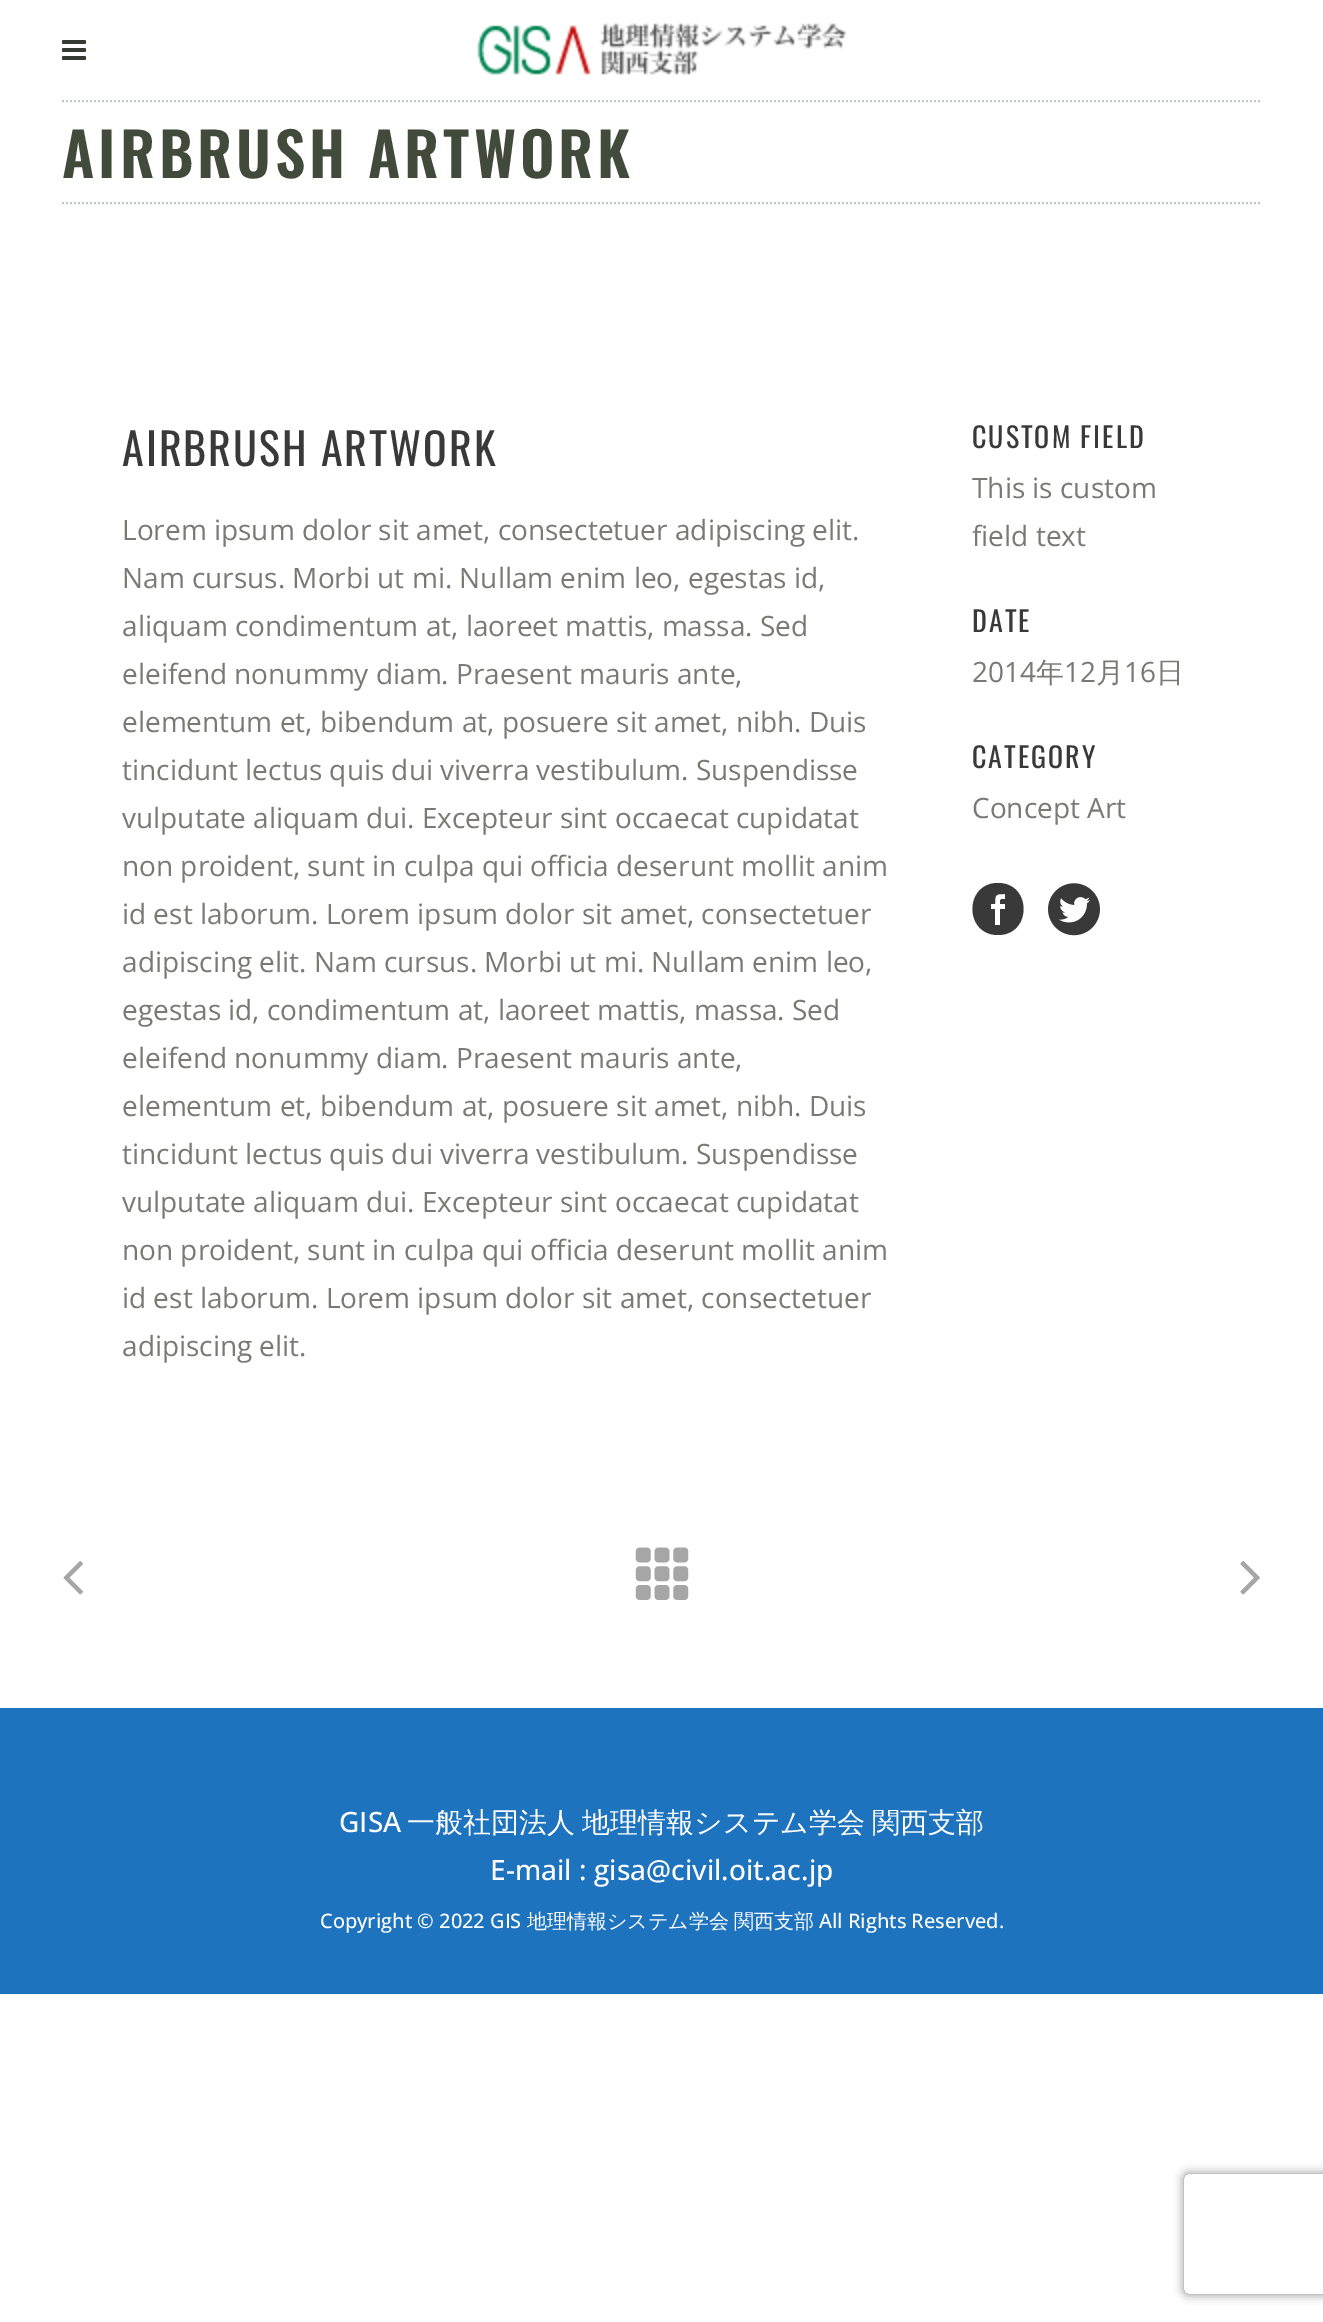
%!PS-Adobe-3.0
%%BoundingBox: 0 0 1323 2322
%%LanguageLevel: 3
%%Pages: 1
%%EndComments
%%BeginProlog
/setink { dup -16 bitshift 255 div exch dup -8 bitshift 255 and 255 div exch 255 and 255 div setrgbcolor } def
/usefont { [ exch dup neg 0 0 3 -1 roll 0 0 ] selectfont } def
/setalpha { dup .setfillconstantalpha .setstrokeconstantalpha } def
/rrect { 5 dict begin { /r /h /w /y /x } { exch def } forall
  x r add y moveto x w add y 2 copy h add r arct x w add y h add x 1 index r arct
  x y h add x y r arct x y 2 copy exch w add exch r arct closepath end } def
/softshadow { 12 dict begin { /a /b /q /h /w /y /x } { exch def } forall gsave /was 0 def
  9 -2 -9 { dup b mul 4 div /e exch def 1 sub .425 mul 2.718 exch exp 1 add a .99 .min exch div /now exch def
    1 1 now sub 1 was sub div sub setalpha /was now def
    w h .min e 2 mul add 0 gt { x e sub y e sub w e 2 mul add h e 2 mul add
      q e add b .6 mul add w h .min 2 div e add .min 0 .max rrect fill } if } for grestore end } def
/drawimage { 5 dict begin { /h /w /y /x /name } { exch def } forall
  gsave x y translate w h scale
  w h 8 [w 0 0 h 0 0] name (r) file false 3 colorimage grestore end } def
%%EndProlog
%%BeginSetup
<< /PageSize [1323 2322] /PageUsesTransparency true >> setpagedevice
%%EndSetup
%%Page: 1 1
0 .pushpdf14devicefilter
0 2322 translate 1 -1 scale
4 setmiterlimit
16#FFFFFF setink
0 0 1323 2322 rectfill
(img1.raw) 62 40 24 20 drawimage
(img2.raw) 477 23 370 52 drawimage
16#C0C5C7 setink
2 setlinewidth
[2 2] 0 setdash
62 101 moveto 1262 101 lineto stroke
62 203 moveto 1262 203 lineto stroke
/Oswald-SemiBold 60 usefont
16#414A3B setink
62 178 moveto 4 0 (AIRBRUSH ARTWORK) ashow
/Oswald-Regular 44 usefont
16#393939 setink
122 466 moveto 2 0 (AIRBRUSH ARTWORK) ashow
/OpenSans-Regular 28 usefont
16#7A7976 setink
[
    [(Lorem ipsum dolor sit amet, consectetuer adipiscing elit.) 122 540]
    [(Nam cursus. Morbi ut mi. Nullam enim leo, egestas id,) 122 588]
    [(aliquam condimentum at, laoreet mattis, massa. Sed) 122 636]
    [(eleifend nonummy diam. Praesent mauris ante,) 122 684]
    [(elementum et, bibendum at, posuere sit amet, nibh. Duis) 122 732]
    [(tincidunt lectus quis dui viverra vestibulum. Suspendisse) 122 780]
    [(vulputate aliquam dui. Excepteur sint occaecat cupidatat) 122 828]
    [(non proident, sunt in culpa qui officia deserunt mollit anim) 122 876]
    [(id est laborum. Lorem ipsum dolor sit amet, consectetuer) 122 924]
    [(adipiscing elit. Nam cursus. Morbi ut mi. Nullam enim leo,) 122 972]
    [(egestas id, condimentum at, laoreet mattis, massa. Sed) 122 1020]
    [(eleifend nonummy diam. Praesent mauris ante,) 122 1068]
    [(elementum et, bibendum at, posuere sit amet, nibh. Duis) 122 1116]
    [(tincidunt lectus quis dui viverra vestibulum. Suspendisse) 122 1164]
    [(vulputate aliquam dui. Excepteur sint occaecat cupidatat) 122 1212]
    [(non proident, sunt in culpa qui officia deserunt mollit anim) 122 1260]
    [(id est laborum. Lorem ipsum dolor sit amet, consectetuer) 122 1308]
    [(adipiscing elit.) 122 1356]
] { aload pop moveto show } forall
/Oswald-Regular 28 usefont
16#393939 setink
972 448 moveto 2 0 (CUSTOM FIELD) ashow
/OpenSans-Regular 28 usefont
16#7A7976 setink
972 498 moveto (This is custom) show
972 546 moveto (field text) show
/Oswald-Regular 28 usefont
16#393939 setink
972 632 moveto 2 0 (DATE) ashow
/OpenSans-Regular 28 usefont
16#7A7976 setink
972 682 moveto (2014) show
/WenQuanYiZenHei-Medium 28 usefont
1036 682 moveto (年) show
/OpenSans-Regular 28 usefont
1064 682 moveto (12) show
/WenQuanYiZenHei-Medium 28 usefont
1096 682 moveto (月) show
/OpenSans-Regular 28 usefont
1124 682 moveto (16) show
/WenQuanYiZenHei-Medium 28 usefont
1156 682 moveto (日) show
/Oswald-Regular 28 usefont
16#393939 setink
972 768 moveto 2 0 (CATEGORY) ashow
/OpenSans-Regular 28 usefont
16#7A7976 setink
972 818 moveto (Concept Art) show
16#393939 setink
998 883 moveto 1032 883 1032 935 998 935 curveto 964 935 964 883 998 883 curveto closepath 1005 909 moveto 1005 904 lineto 1000 904 lineto 1000 899 1000 899 1005 899 curveto 1005 894 lineto 996 894 995 894 995 904 curveto 991 904 lineto 991 909 lineto 995 909 lineto 995 925 lineto 1000 925 lineto 1000 909 lineto closepath fill
(img3.raw) 1048 883 52 53 drawimage
(img4.raw) 63 1561 20 34 drawimage
(img5.raw) 635 1547 54 53 drawimage
(img6.raw) 1240 1561 20 34 drawimage
16#1E73BE setink
0 1708 1323 286 rectfill
/OpenSans-Medium 28 usefont
16#FFFFFF setink
339 1832 moveto (GISA) show
/WenQuanYiZenHei-Medium 28 usefont
407 1832 moveto -1 0 32 (一般社団法人 地理情報システム学会 関西支部) widthshow
/OpenSans-Medium 28 usefont
490 1880 moveto (E-mail : gisa@civil.oit.ac.jp) show
/OpenSans-Medium 20 usefont
320 1928 moveto (Copyright © 2022 GIS) show
/WenQuanYiZenHei-Medium 20 usefont
527 1928 moveto (地理情報システム学会) show
734 1928 moveto (関西支部) show
/OpenSans-Medium 20 usefont
819 1928 moveto (All Rights Reserved.) show
gsave
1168 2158 moveto 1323 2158 lineto 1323 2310 lineto 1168 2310 lineto closepath 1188 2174 moveto 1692 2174 lineto 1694 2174 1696 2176 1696 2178 curveto 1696 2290 lineto 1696 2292 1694 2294 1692 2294 curveto 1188 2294 lineto 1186 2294 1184 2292 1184 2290 curveto 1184 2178 lineto 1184 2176 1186 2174 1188 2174 curveto closepath eoclip newpath
16#808080 setink
1184 2174 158 120 4 5 1 softshadow
grestore
.poppdf14devicefilter showpage
%%EOF
